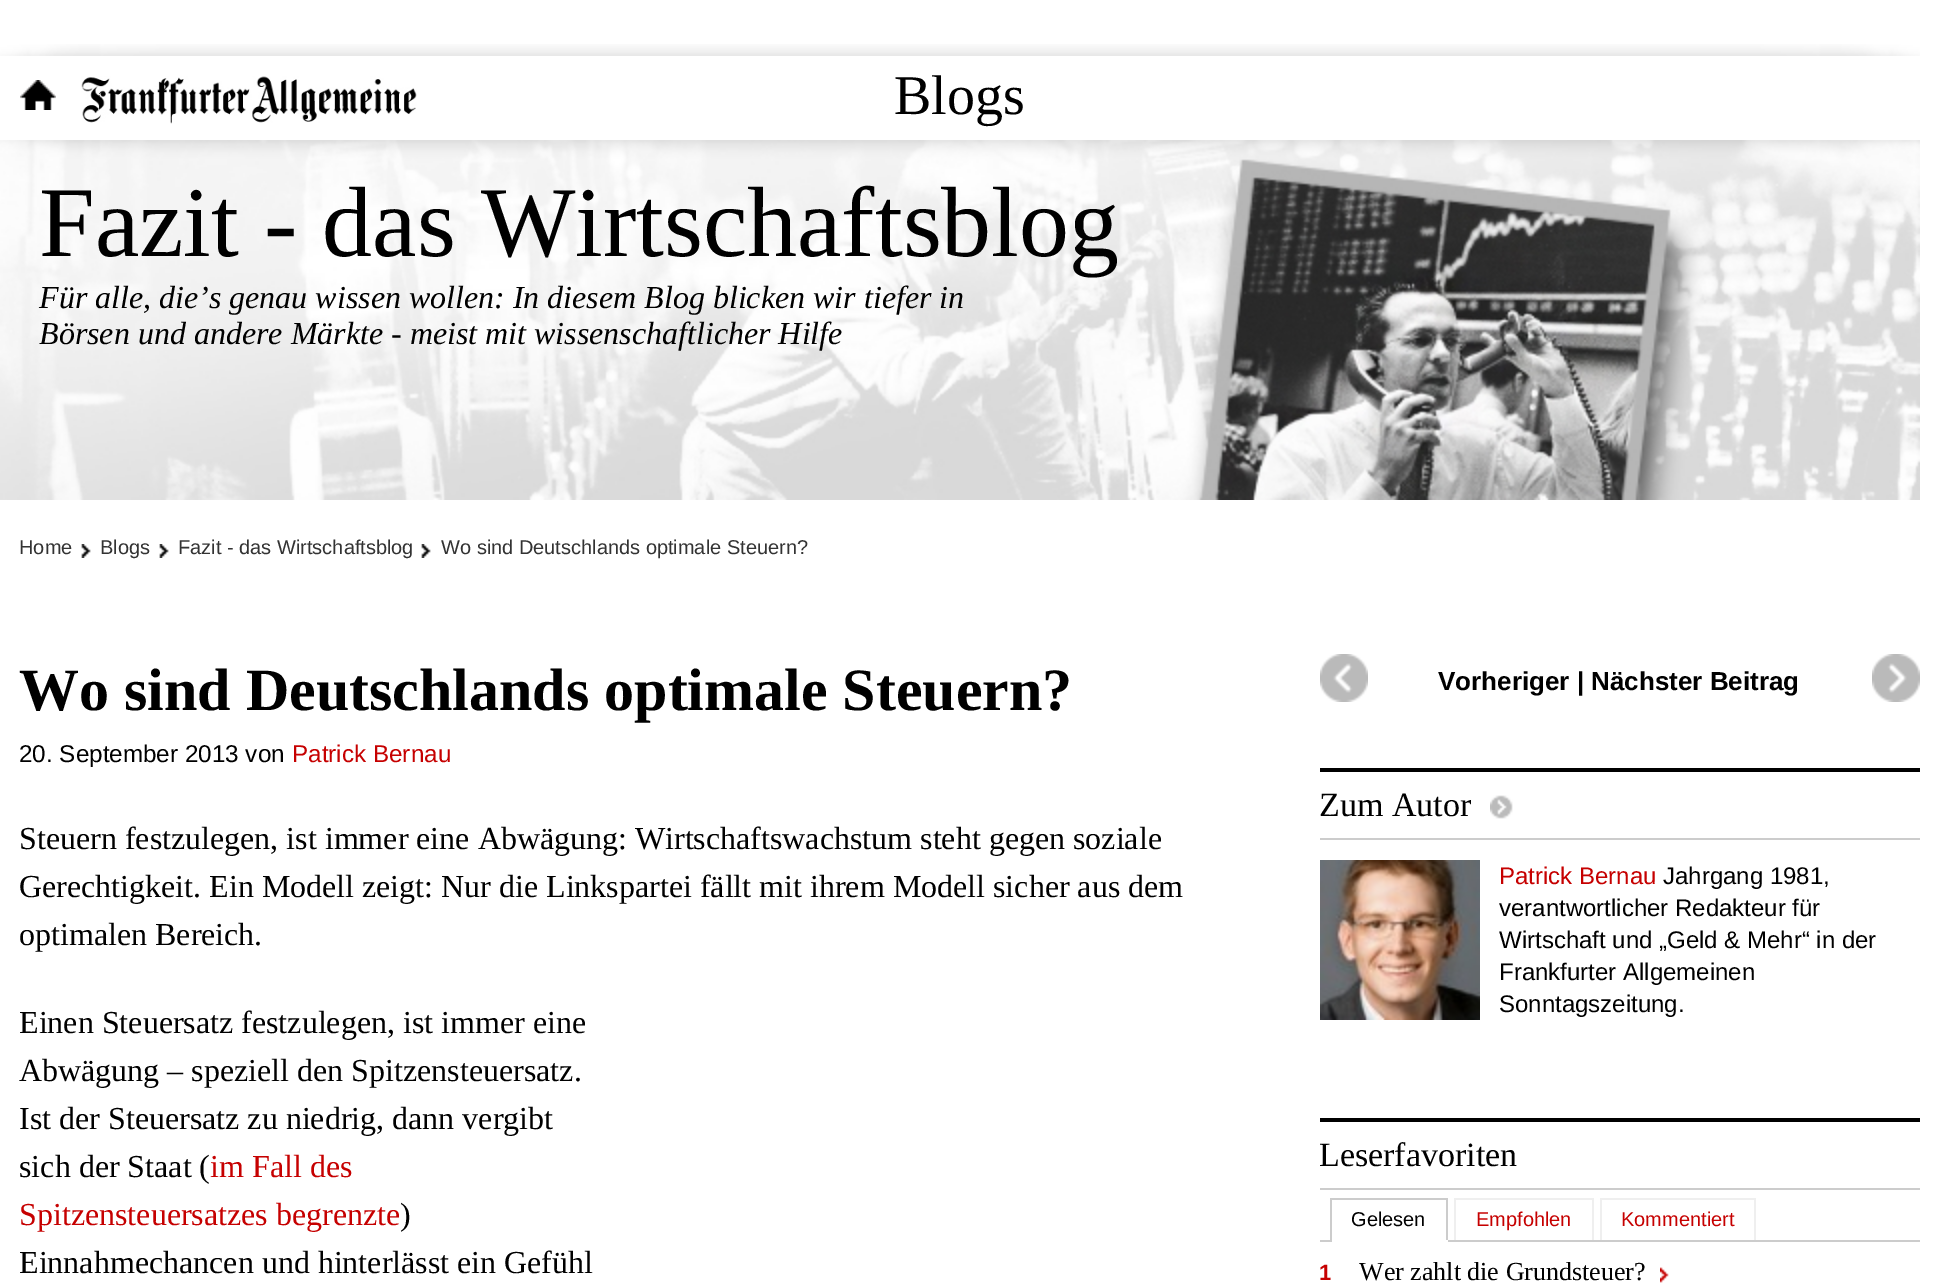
%!PS-Adobe-3.0
%%BoundingBox: 0 0 1938 1288
%%LanguageLevel: 3
%%Pages: 1
%%EndComments
%%BeginProlog
/setink { dup -16 bitshift 255 div exch dup -8 bitshift 255 and 255 div exch 255 and 255 div setrgbcolor } def
/usefont { [ exch dup neg 0 0 3 -1 roll 0 0 ] selectfont } def
/drawimage { 5 dict begin { /h /w /y /x /name } { exch def } forall
  gsave x y translate w h scale
  w h 8 [w 0 0 h 0 0] name (r) file false 3 colorimage grestore end } def
%%EndProlog
%%BeginSetup
<< /PageSize [1938 1288] >> setpagedevice
%%EndSetup
%%Page: 1 1
0 1288 translate 1 -1 scale
4 setmiterlimit
16#FFFFFF setink
0 0 1938 1288 rectfill
(img1.raw) 0 44 1920 12 drawimage
(img2.raw) 20 80 36 30 drawimage
(img3.raw) 81 76 336 48 drawimage
/LiberationSerif-Regular 56 usefont
16#000000 setink
894 114 moveto (Blogs) show
(img4.raw) 0 140 1920 360 drawimage
/LiberationSerif-Regular 100 usefont
39 256 moveto (Fazit - das Wirtschaftsblog) show
/LiberationSerif-Italic 32 usefont
39 308 moveto (Für alle, die’s genau wissen wollen: In diesem Blog blicken wir tiefer in) show
39 344 moveto (Börsen und andere Märkte - meist mit wissenschaftlicher Hilfe) show
/LiberationSans-Regular 20 usefont
16#333333 setink
19 554 moveto (Home) show
(img5.raw) 81 544 10 14 drawimage
100 554 moveto (Blogs) show
(img5.raw) 159 544 10 14 drawimage
178 554 moveto (Fazit - das Wirtschaftsblog) show
(img5.raw) 421 544 10 14 drawimage
441 554 moveto (Wo sind Deutschlands optimale Steuern?) show
/LiberationSerif-Bold 60 usefont
16#000000 setink
19 710 moveto (Wo sind Deutschlands optimale Steuern?) show
/LiberationSans-Regular 24.25 usefont
19 762 moveto (20. September 2013 von) show
16#C60000 setink
292 762 moveto (Patrick Bernau) show
/LiberationSerif-Regular 32 usefont
16#000000 setink
[
    [(Steuern festzulegen, ist immer eine Abwägung: Wirtschaftswachstum steht gegen soziale) 19 849]
    [(Gerechtigkeit. Ein Modell zeigt: Nur die Linkspartei fällt mit ihrem Modell sicher aus dem) 19 897]
    [(optimalen Bereich.) 19 945]
    [(Einen Steuersatz festzulegen, ist immer eine) 19 1033]
    [(Abwägung – speziell den Spitzensteuersatz.) 19 1081]
    [(Ist der Steuersatz zu niedrig, dann vergibt) 19 1129]
    [(sich der Staat \() 19 1177]
] { aload pop moveto show } forall
16#C60000 setink
210 1177 moveto (im Fall des) show
19 1225 moveto (Spitzensteuersatzes begrenzte) show
16#000000 setink
400 1225 moveto (\)) show
19 1273 moveto (Einnahmechancen und hinterlässt ein Gefühl) show
(img6.raw) 1320 654 48 48 drawimage
/LiberationSans-Bold 26 usefont
1438 690 moveto (Vorheriger | Nächster Beitrag) show
(img7.raw) 1872 654 48 48 drawimage
1320 768 600 4 rectfill
16#CCCCCC setink
1320 838 600 2 rectfill
/LiberationSerif-Regular 34 usefont
16#000000 setink
1319 816 moveto (Zum Autor) show
(img8.raw) 1490 795 23 24 drawimage
(img9.raw) 1320 860 160 160 drawimage
/LiberationSans-Regular 24 usefont
16#C60000 setink
1499 884 moveto (Patrick Bernau) show
16#000000 setink
[
    [(Jahrgang 1981,) 1663 884]
    [(verantwortlicher Redakteur für) 1499 916]
    [(Wirtschaft und „Geld & Mehr“ in der) 1499 948]
    [(Frankfurter Allgemeinen) 1499 980]
    [(Sonntagszeitung.) 1499 1012]
] { aload pop moveto show } forall
1320 1118 600 4 rectfill
16#CCCCCC setink
1320 1188 600 2 rectfill
/LiberationSerif-Regular 34 usefont
16#000000 setink
1319 1166 moveto (Leserfavoriten) show
[
    [1320 1240 600 2 16#CCCCCC]
    [1330 1198 118 2 16#CCCCCC]
    [1446 1198 2 44 16#CCCCCC]
    [1330 1240 118 2 16#FFFFFF]
    [1330 1198 2 44 16#CCCCCC]
] { aload pop setink rectfill } forall
/LiberationSans-Regular 20 usefont
16#000000 setink
1351 1226 moveto (Gelesen) show
[
    [1454 1198 140 2 16#EFEFEF]
    [1592 1198 2 42 16#EFEFEF]
    [1454 1198 2 42 16#EFEFEF]
] { aload pop setink rectfill } forall
16#C60000 setink
1476 1226 moveto (Empfohlen) show
[
    [1600 1198 156 2 16#EFEFEF]
    [1754 1198 2 42 16#EFEFEF]
    [1600 1198 2 42 16#EFEFEF]
] { aload pop setink rectfill } forall
16#C60000 setink
1621 1226 moveto (Kommentiert) show
/LiberationSans-Bold 22 usefont
1319 1280 moveto (1) show
/LiberationSerif-Regular 26 usefont
16#000000 setink
1359 1280 moveto (Wer zahlt die Grundsteuer?) show
(img10.raw) 1660 1267 9 16 drawimage
showpage
%%EOF
